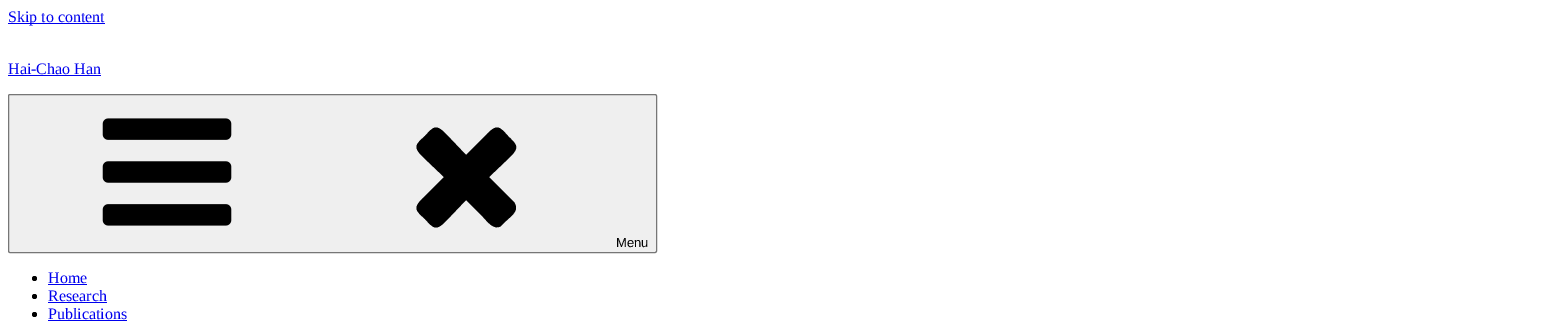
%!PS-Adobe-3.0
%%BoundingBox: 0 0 1567 324
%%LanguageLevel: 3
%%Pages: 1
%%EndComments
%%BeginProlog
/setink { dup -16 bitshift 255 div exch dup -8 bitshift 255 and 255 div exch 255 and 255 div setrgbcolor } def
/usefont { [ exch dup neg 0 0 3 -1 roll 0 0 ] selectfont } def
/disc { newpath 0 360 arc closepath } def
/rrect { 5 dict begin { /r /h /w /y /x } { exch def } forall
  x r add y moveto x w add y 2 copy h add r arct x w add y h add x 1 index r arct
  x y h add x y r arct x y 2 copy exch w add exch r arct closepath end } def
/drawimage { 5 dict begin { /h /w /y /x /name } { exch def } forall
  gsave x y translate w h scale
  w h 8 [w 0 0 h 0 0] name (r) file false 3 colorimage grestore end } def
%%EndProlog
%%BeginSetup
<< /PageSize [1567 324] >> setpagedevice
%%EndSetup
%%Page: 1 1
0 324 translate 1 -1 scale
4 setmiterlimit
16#FFFFFF setink
0 0 1567 324 rectfill
16#0000EE setink
8 23 97 1 rectfill
/LiberationSerif-Regular 16 usefont
8 22 moveto (Skip to content) show
8 74 moveto (Hai-Chao Han) show
8 75 93 1 rectfill
16#EFEFEF setink
8.5 94.5 648 158 1.5 rrect gsave fill grestore
16#767676 setink
stroke
(img1.raw) 102 118 130 108 drawimage
16#000000 setink
516 208 moveto 516 213 510 217 506 221 curveto 501 226 lineto 494 231 487 221 483 217 curveto 466 200 lineto 446 221 lineto 436 231 434 229 425 219 curveto 415 210 413 208 423 198 curveto 444 177 lineto 423 157 lineto 413 147 415 145 425 136 curveto 434 126 436 124 446 134 curveto 466 155 lineto 487 134 lineto 497 124 499 126 508 136 curveto 517 145 520 147 510 157 curveto 489 177 lineto 514 202 lineto 515 204 516 205 516 208 curveto closepath fill
/LiberationSans-Regular 13 usefont
616 247 moveto (Menu) show
34.5 278.5 2.5 disc fill
/LiberationSerif-Regular 16 usefont
16#0000EE setink
48 283 moveto (Home) show
48 284 39 1 rectfill
16#000000 setink
34.5 296.5 2.5 disc fill
16#0000EE setink
48 301 moveto (Research) show
48 302 59 1 rectfill
16#000000 setink
34.5 314.5 2.5 disc fill
16#0000EE setink
48 319 moveto (Publications) show
48 320 79 1 rectfill
showpage
%%EOF
